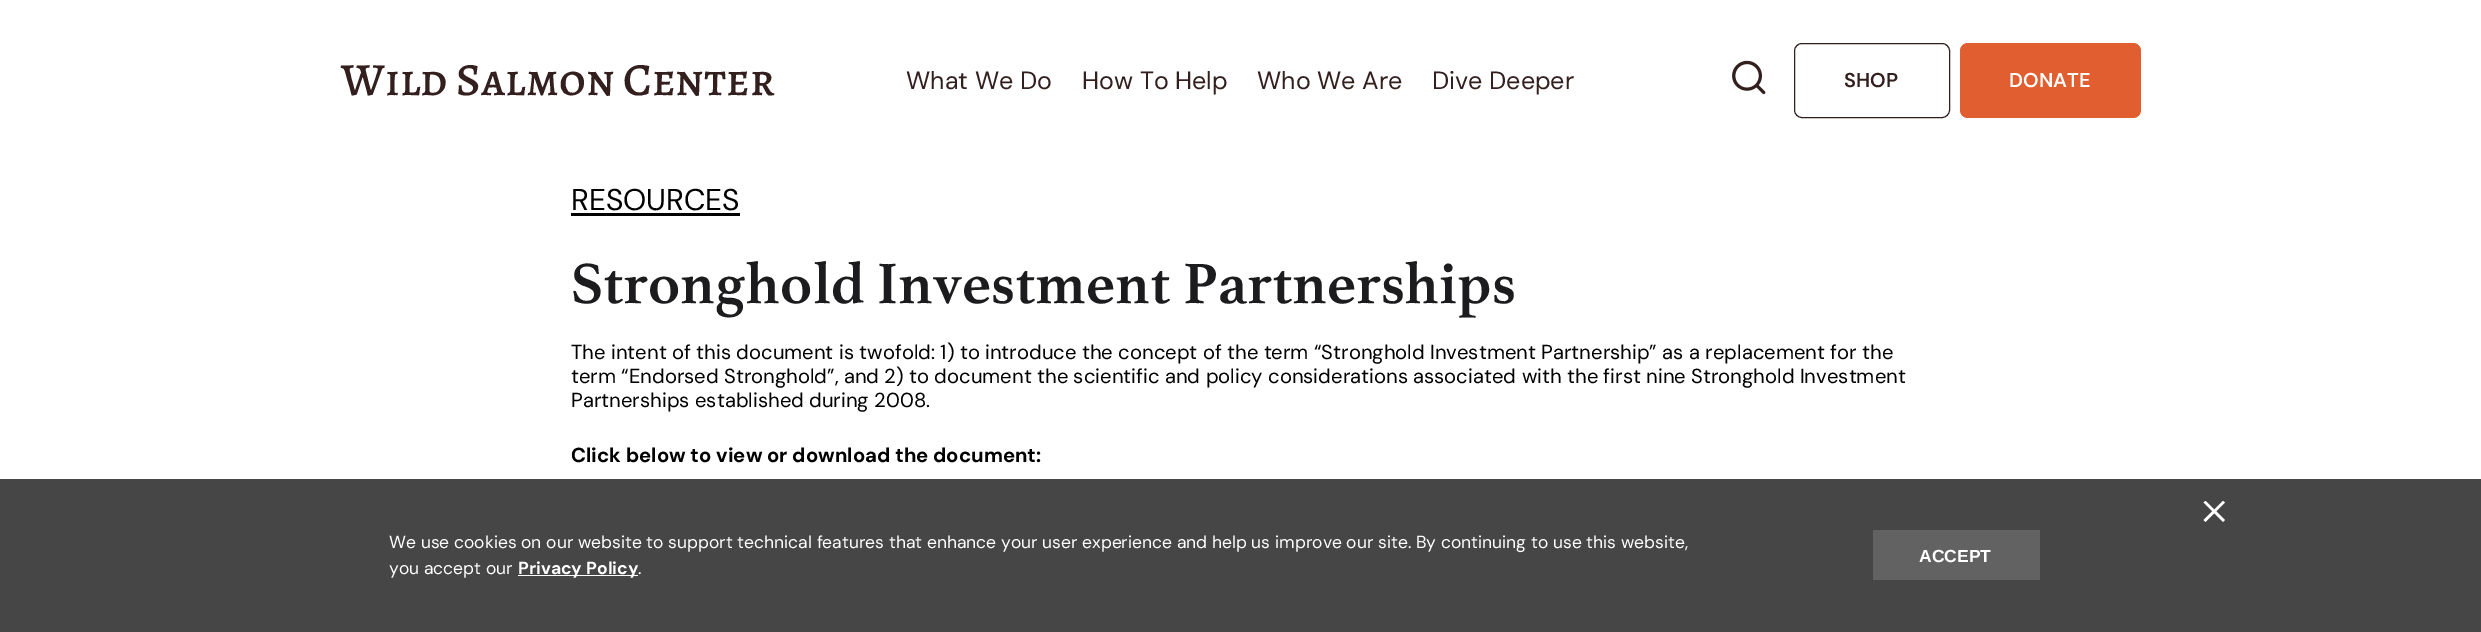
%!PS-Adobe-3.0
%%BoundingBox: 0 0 2481 632
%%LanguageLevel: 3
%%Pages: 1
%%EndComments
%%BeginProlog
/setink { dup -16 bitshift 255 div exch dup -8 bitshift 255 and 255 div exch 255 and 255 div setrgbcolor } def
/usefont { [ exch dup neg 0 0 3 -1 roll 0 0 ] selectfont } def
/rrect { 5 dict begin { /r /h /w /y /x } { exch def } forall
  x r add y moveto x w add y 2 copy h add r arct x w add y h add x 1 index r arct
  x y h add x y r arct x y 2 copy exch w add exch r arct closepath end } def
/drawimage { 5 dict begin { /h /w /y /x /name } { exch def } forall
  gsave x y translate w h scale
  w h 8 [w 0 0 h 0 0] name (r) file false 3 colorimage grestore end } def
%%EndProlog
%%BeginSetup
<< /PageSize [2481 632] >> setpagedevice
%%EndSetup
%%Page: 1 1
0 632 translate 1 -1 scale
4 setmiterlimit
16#FFFFFF setink
0 0 2481 632 rectfill
/AlegreyaSC-Medium 46.25 usefont
16#33201E setink
341 95 moveto (Wild Salmon Center) show
/DMSans-Regular 25 usefont
[
    [(What We Do) 906 89]
    [(How To Help) 1082 89]
    [(Who We Are) 1257 89]
    [(Dive Deeper) 1432 89]
] { aload pop moveto show } forall
(img1.raw) 1732 60 34 35 drawimage
1794.5 43.5 155 74 7.5 rrect stroke
/DMSans-SemiBold 20 usefont
1844 87 moveto (SHOP) show
16#E05E2F setink
1960 43 181 75 8 rrect fill
16#FFFFFF setink
2009 87 moveto (DONATE) show
/DMSans-Regular 30 usefont
16#000000 setink
571 210 moveto (RESOURCES) show
571 213 169 3 rectfill
/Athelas-Bold 60 usefont
16#1C1B1E setink
571 303 moveto (Stronghold Investment Partnerships) show
/DMSans-Regular 20.28 usefont
16#000000 setink
[
    [(The intent of this document is twofold: 1\) to introduce the concept of the term “Stronghold Investment Partnership” as a replacement for the) 571 359]
    [(term “Endorsed Stronghold”, and 2\) to document the scientific and policy considerations associated with the first nine Stronghold Investment) 571 383]
    [(Partnerships established during 2008.) 571 407]
] { aload pop moveto show } forall
/DMSans-Bold 20.28 usefont
571 462 moveto (Click below to view or download the document:) show
16#464646 setink
0 479 2481 153 rectfill
16#FFFFFF setink
2203.5 520 moveto 2223 501 lineto 2225 502.5 lineto 2205.5 522 lineto closepath fill
2205.5 501 moveto 2225 520 lineto 2223 522 lineto 2203.5 502.5 lineto closepath fill
/DMSans-Regular 17.5 usefont
389 548 moveto (We use cookies on our website to support technical features that enhance your user experience and help us improve our site. By continuing to use this website,) show
389 574 moveto (you accept our) show
518 575 120 1 rectfill
/DMSans-Bold 17.5 usefont
518 574 moveto (Privacy Policy) show
/DMSans-Regular 17.5 usefont
638 574 moveto (.) show
16#626262 setink
1873 530 167 50 rectfill
/LiberationSans-Bold 17.5 usefont
16#FFFFFF setink
1919 562 moveto (ACCEPT) show
showpage
%%EOF
